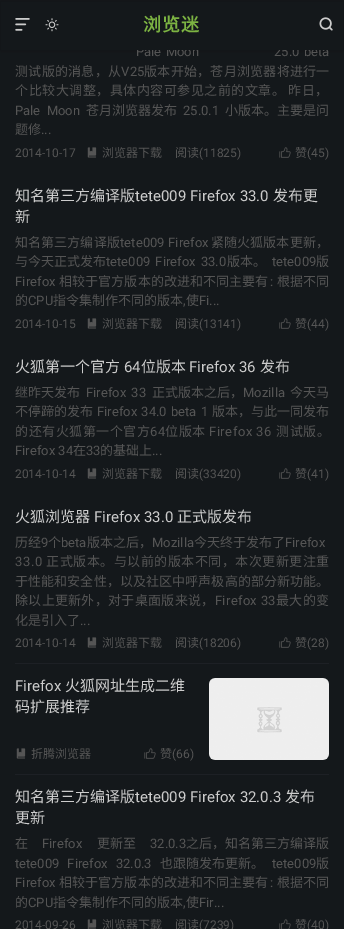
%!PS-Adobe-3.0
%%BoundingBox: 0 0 344 929
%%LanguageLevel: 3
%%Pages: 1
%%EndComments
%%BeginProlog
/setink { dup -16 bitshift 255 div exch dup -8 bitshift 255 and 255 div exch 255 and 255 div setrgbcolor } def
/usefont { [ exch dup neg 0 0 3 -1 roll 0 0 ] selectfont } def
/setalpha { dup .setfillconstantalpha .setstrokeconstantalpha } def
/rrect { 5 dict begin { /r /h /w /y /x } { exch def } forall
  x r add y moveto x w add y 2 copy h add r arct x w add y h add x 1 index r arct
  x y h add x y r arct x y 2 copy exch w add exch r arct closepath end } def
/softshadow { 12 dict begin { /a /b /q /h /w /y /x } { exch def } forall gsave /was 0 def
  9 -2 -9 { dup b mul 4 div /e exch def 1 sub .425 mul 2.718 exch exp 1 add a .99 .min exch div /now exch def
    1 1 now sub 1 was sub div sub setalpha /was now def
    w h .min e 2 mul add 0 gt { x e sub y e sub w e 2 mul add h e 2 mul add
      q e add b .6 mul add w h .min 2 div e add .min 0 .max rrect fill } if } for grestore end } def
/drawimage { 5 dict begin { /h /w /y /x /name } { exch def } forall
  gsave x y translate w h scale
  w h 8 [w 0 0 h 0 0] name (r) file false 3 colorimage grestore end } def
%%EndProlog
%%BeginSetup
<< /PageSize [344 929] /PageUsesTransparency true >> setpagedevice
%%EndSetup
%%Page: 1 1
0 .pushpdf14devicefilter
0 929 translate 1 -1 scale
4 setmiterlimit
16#14181B setink
0 0 344 929 rectfill
16#000000 setink
0 1 344 50 0 2.5 0.15 softshadow
/Roboto-Regular 13 usefont
16#555555 setink
136 56 moveto 1 0 32 (Pale Moon) widthshow
274 56 moveto 1 0 32 (25.0 beta) widthshow
16#14181B setink
1 2 342 48 rectfill
(img1.raw) 15 18 15 13 drawimage
/NotoSansCJKSC-Bold 18 usefont
16#7CB342 setink
143 31 moveto 1 0 (浏览迷) ashow
(img2.raw) 45 18 14 14 drawimage
(img3.raw) 319 17 14 14 drawimage
/NotoSansCJKSC-Regular 13 usefont
16#555555 setink
15 76 moveto 0.25 0 (测试版的消息，从) ashow
/Roboto-Regular 13 usefont
121 76 moveto 0.25 0 (V25) ashow
/NotoSansCJKSC-Regular 13 usefont
144 76 moveto 0.25 0 (版本开始，苍月浏览器将进行一) ashow
15 95 moveto 0.5 0 (个比较大调整，具体内容可参见之前的文章。 昨日，) ashow
/Roboto-Regular 13 usefont
15 115 moveto 3 0 32 (Pale Moon) widthshow
/NotoSansCJKSC-Regular 13 usefont
86 115 moveto (苍月浏览器发布) show
/Roboto-Regular 13 usefont
183 115 moveto (25.0.1) show
/NotoSansCJKSC-Regular 13 usefont
225 115 moveto (小版本。主要是问) show
15 134 moveto (题修) show
/Roboto-Regular 13 usefont
41 134 moveto (...) show
/Roboto-Regular 12 usefont
15 157 moveto (2014-10-17) show
(img4.raw) 87 147 10 11 drawimage
/NotoSansCJKSC-Regular 12 usefont
102 157 moveto (浏览器下载) show
175 157 moveto (阅读) show
/Roboto-Regular 12 usefont
199 157 moveto (\(11825\)) show
(img5.raw) 279 147 12 11 drawimage
/NotoSansCJKSC-Regular 12 usefont
295 157 moveto (赞) show
/Roboto-Regular 12 usefont
307 157 moveto (\(45\)) show
/NotoSansCJKSC-Regular 15 usefont
16#CCCCCC setink
15 201 moveto (知名第三方编译版) show
/Roboto-Regular 15 usefont
135 201 moveto (tete009 Firefox 33.0) show
/NotoSansCJKSC-Regular 15 usefont
273 201 moveto (发布更) show
15 222 moveto (新) show
/NotoSansCJKSC-Regular 13 usefont
16#555555 setink
15 247 moveto 0.1 0 (知名第三方编译版) ashow
/Roboto-Regular 13 usefont
120 247 moveto 0.1 0 (tete009 Firefox) ashow
/NotoSansCJKSC-Regular 13 usefont
211 247 moveto 0.1 0 (紧随火狐版本更新，) ashow
15 266 moveto (与今天正式发布) show
/Roboto-Regular 13 usefont
106 266 moveto 2 0 32 (tete009 Firefox 33.0) widthshow
/NotoSansCJKSC-Regular 13 usefont
227 266 moveto (版本。) show
/Roboto-Regular 13 usefont
272 266 moveto (tete009) show
/NotoSansCJKSC-Regular 13 usefont
316 266 moveto (版) show
/Roboto-Regular 13 usefont
15 286 moveto 0.1 0 (Firefox) ashow
/NotoSansCJKSC-Regular 13 usefont
59 286 moveto 0.1 0 (相较于官方版本的改进和不同主要有) ashow
/Roboto-Regular 13 usefont
270 286 moveto 0.1 0 (:) ashow
/NotoSansCJKSC-Regular 13 usefont
277 286 moveto 0.1 0 (根据不同) ashow
15 305 moveto (的) show
/Roboto-Regular 13 usefont
28 305 moveto (CPU) show
/NotoSansCJKSC-Regular 13 usefont
53 305 moveto (指令集制作不同的版本) show
/Roboto-Regular 13 usefont
183 305 moveto (,) show
/NotoSansCJKSC-Regular 13 usefont
186 305 moveto (使) show
/Roboto-Regular 13 usefont
199 305 moveto (Fi...) show
/Roboto-Regular 12 usefont
15 328 moveto (2014-10-15) show
(img4.raw) 87 318 10 11 drawimage
/NotoSansCJKSC-Regular 12 usefont
102 328 moveto (浏览器下载) show
175 328 moveto (阅读) show
/Roboto-Regular 12 usefont
199 328 moveto (\(13141\)) show
(img5.raw) 279 318 12 11 drawimage
/NotoSansCJKSC-Regular 12 usefont
295 328 moveto (赞) show
/Roboto-Regular 12 usefont
307 328 moveto (\(44\)) show
/NotoSansCJKSC-Regular 15 usefont
16#CCCCCC setink
15 372 moveto (火狐第一个官方) show
/Roboto-Regular 15 usefont
124 372 moveto (64) show
/NotoSansCJKSC-Regular 15 usefont
141 372 moveto (位版本) show
/Roboto-Regular 15 usefont
189 372 moveto (Firefox 36) show
/NotoSansCJKSC-Regular 15 usefont
260 372 moveto (发布) show
/NotoSansCJKSC-Regular 13 usefont
16#555555 setink
15 397 moveto (继昨天发布) show
/Roboto-Regular 13 usefont
86 397 moveto 2 0 32 (Firefox 33) widthshow
/NotoSansCJKSC-Regular 13 usefont
152 397 moveto (正式版本之后，) show
/Roboto-Regular 13 usefont
243 397 moveto (Mozilla) show
/NotoSansCJKSC-Regular 13 usefont
290 397 moveto (今天马) show
15 416 moveto (不停蹄的发布) show
/Roboto-Regular 13 usefont
97 416 moveto 1 0 32 (Firefox 34.0 beta 1) widthshow
/NotoSansCJKSC-Regular 13 usefont
212 416 moveto (版本，与此一同发布) show
15 436 moveto 0.5 0 (的还有火狐第一个官方) ashow
/Roboto-Regular 13 usefont
150 436 moveto 0.5 0 (64) ashow
/NotoSansCJKSC-Regular 13 usefont
165 436 moveto 0.5 0 (位版本) ashow
/Roboto-Regular 13 usefont
209 436 moveto 0.5 0 (Firefox 36) ashow
/NotoSansCJKSC-Regular 13 usefont
276 436 moveto 0.5 0 (测试版。) ashow
/Roboto-Regular 13 usefont
15 455 moveto (Firefox 34) show
/NotoSansCJKSC-Regular 13 usefont
73 455 moveto (在) show
/Roboto-Regular 13 usefont
86 455 moveto (33) show
/NotoSansCJKSC-Regular 13 usefont
100 455 moveto (的基础上) show
/Roboto-Regular 13 usefont
152 455 moveto (...) show
/Roboto-Regular 12 usefont
15 478 moveto (2014-10-14) show
(img4.raw) 87 468 10 11 drawimage
/NotoSansCJKSC-Regular 12 usefont
102 478 moveto (浏览器下载) show
175 478 moveto (阅读) show
/Roboto-Regular 12 usefont
199 478 moveto (\(33420\)) show
(img5.raw) 279 468 12 11 drawimage
/NotoSansCJKSC-Regular 12 usefont
295 478 moveto (赞) show
/Roboto-Regular 12 usefont
307 478 moveto (\(41\)) show
/NotoSansCJKSC-Regular 15 usefont
16#CCCCCC setink
15 522 moveto (火狐浏览器) show
/Roboto-Regular 15 usefont
94 522 moveto (Firefox 33.0) show
/NotoSansCJKSC-Regular 15 usefont
177 522 moveto (正式版发布) show
/NotoSansCJKSC-Regular 13 usefont
16#555555 setink
15 547 moveto (历经) show
/Roboto-Regular 13 usefont
41 547 moveto (9) show
/NotoSansCJKSC-Regular 13 usefont
48 547 moveto (个) show
/Roboto-Regular 13 usefont
61 547 moveto (beta) show
/NotoSansCJKSC-Regular 13 usefont
87 547 moveto (版本之后，) show
/Roboto-Regular 13 usefont
152 547 moveto (Mozilla) show
/NotoSansCJKSC-Regular 13 usefont
194 547 moveto (今天终于发布了) show
/Roboto-Regular 13 usefont
285 547 moveto (Firefox) show
15 566 moveto 0.5 0 (33.0) ashow
/NotoSansCJKSC-Regular 13 usefont
46 566 moveto 0.5 0 (正式版本。与以前的版本不同，本次更新更注重) ashow
15 586 moveto 0.1 0 (于性能和安全性，以及社区中呼声极高的部分新功能。) ashow
15 605 moveto 0.3 0 (除以上更新外，对于桌面版来说，) ashow
/Roboto-Regular 13 usefont
215 605 moveto 0.3 0 (Firefox 33) ashow
/NotoSansCJKSC-Regular 13 usefont
276 605 moveto 0.3 0 (最大的变) ashow
15 625 moveto (化是引入了) show
/Roboto-Regular 13 usefont
80 625 moveto (...) show
/Roboto-Regular 12 usefont
15 647 moveto (2014-10-14) show
(img4.raw) 87 637 10 11 drawimage
/NotoSansCJKSC-Regular 12 usefont
102 647 moveto (浏览器下载) show
175 647 moveto (阅读) show
/Roboto-Regular 12 usefont
199 647 moveto (\(18206\)) show
(img5.raw) 279 637 12 11 drawimage
/NotoSansCJKSC-Regular 12 usefont
295 647 moveto (赞) show
/Roboto-Regular 12 usefont
307 647 moveto (\(28\)) show
16#1D2025 setink
15 663 314 1 0.5 rrect fill
/Roboto-Regular 15 usefont
16#CCCCCC setink
15 691 moveto (Firefox) show
/NotoSansCJKSC-Regular 15 usefont
65 691 moveto (火狐网址生成二维) show
15 712 moveto (码扩展推荐) show
(img6.raw) 209 678 120 82 drawimage
(img4.raw) 16 748 10 11 drawimage
/NotoSansCJKSC-Regular 12 usefont
16#555555 setink
31 758 moveto (折腾浏览器) show
(img5.raw) 144 748 12 11 drawimage
160 758 moveto (赞) show
/Roboto-Regular 12 usefont
172 758 moveto (\(66\)) show
16#1D2025 setink
15 774 314 1 0.5 rrect fill
/NotoSansCJKSC-Regular 15 usefont
16#CCCCCC setink
15 802 moveto (知名第三方编译版) show
/Roboto-Regular 15 usefont
135 802 moveto (tete009 Firefox 32.0.3) show
/NotoSansCJKSC-Regular 15 usefont
285 802 moveto (发布) show
15 823 moveto (更新) show
/NotoSansCJKSC-Regular 13 usefont
16#555555 setink
15 848 moveto (在) show
/Roboto-Regular 13 usefont
42 848 moveto (Firefox) show
/NotoSansCJKSC-Regular 13 usefont
97 848 moveto (更新至) show
/Roboto-Regular 13 usefont
150 848 moveto (32.0.3) show
/NotoSansCJKSC-Regular 13 usefont
186 848 moveto (之后，知名第三方编译版) show
/Roboto-Regular 13 usefont
15 868 moveto 5 0 32 (tete009 Firefox 32.0.3) widthshow
/NotoSansCJKSC-Regular 13 usefont
160 868 moveto (也跟随发布更新。) show
/Roboto-Regular 13 usefont
272 868 moveto (tete009) show
/NotoSansCJKSC-Regular 13 usefont
316 868 moveto (版) show
/Roboto-Regular 13 usefont
15 887 moveto 0.1 0 (Firefox) ashow
/NotoSansCJKSC-Regular 13 usefont
59 887 moveto 0.1 0 (相较于官方版本的改进和不同主要有) ashow
/Roboto-Regular 13 usefont
270 887 moveto 0.1 0 (:) ashow
/NotoSansCJKSC-Regular 13 usefont
277 887 moveto 0.1 0 (根据不同) ashow
15 907 moveto (的) show
/Roboto-Regular 13 usefont
28 907 moveto (CPU) show
/NotoSansCJKSC-Regular 13 usefont
53 907 moveto (指令集制作不同的版本) show
/Roboto-Regular 13 usefont
183 907 moveto (,) show
/NotoSansCJKSC-Regular 13 usefont
186 907 moveto (使) show
/Roboto-Regular 13 usefont
199 907 moveto (Fir...) show
/Roboto-Regular 12 usefont
15 929 moveto (2014-09-26) show
(img7.raw) 87 919 10 10 drawimage
/NotoSansCJKSC-Regular 12 usefont
102 929 moveto (浏览器下载) show
175 929 moveto (阅读) show
/Roboto-Regular 12 usefont
199 929 moveto (\(7239\)) show
(img8.raw) 279 919 12 10 drawimage
/NotoSansCJKSC-Regular 12 usefont
295 929 moveto (赞) show
/Roboto-Regular 12 usefont
307 929 moveto (\(40\)) show
.poppdf14devicefilter showpage
%%EOF
